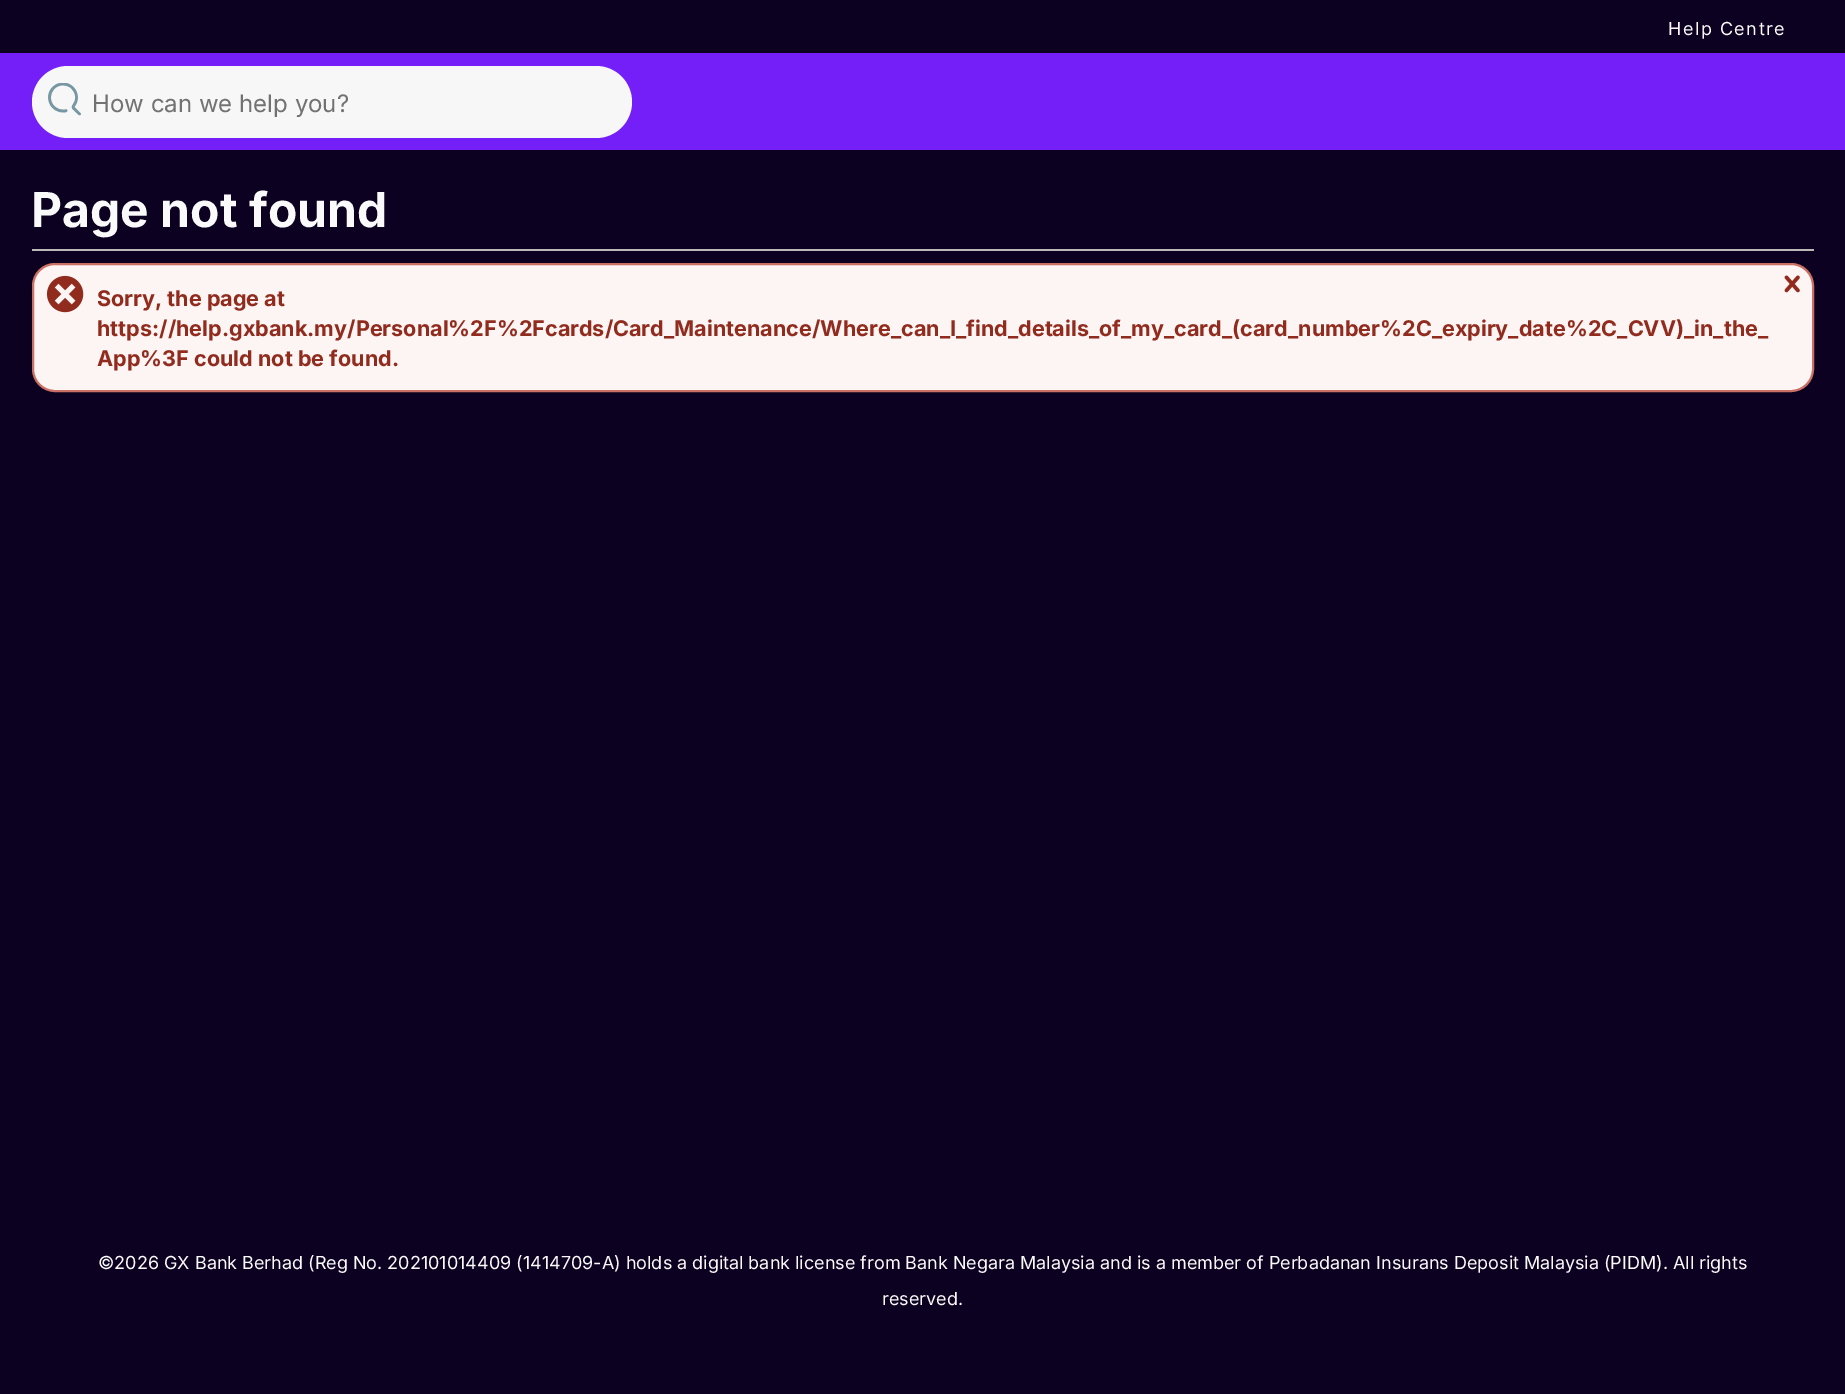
%!PS-Adobe-3.0
%%BoundingBox: 0 0 1845 1394
%%LanguageLevel: 3
%%Pages: 1
%%EndComments
%%BeginProlog
/setink { dup -16 bitshift 255 div exch dup -8 bitshift 255 and 255 div exch 255 and 255 div setrgbcolor } def
/usefont { [ exch dup neg 0 0 3 -1 roll 0 0 ] selectfont } def
/rrect { 5 dict begin { /r /h /w /y /x } { exch def } forall
  x r add y moveto x w add y 2 copy h add r arct x w add y h add x 1 index r arct
  x y h add x y r arct x y 2 copy exch w add exch r arct closepath end } def
/drawimage { 5 dict begin { /h /w /y /x /name } { exch def } forall
  gsave x y translate w h scale
  w h 8 [w 0 0 h 0 0] name (r) file false 3 colorimage grestore end } def
%%EndProlog
%%BeginSetup
<< /PageSize [1845 1394] >> setpagedevice
%%EndSetup
%%Page: 1 1
0 1394 translate 1 -1 scale
4 setmiterlimit
16#0C0120 setink
0 0 1845 1394 rectfill
/Inter-Regular 18 usefont
16#FAFAFA setink
1668 35 moveto 1.5 0 (Help Centre) ashow
16#741EF8 setink
0 53 1845 97 rectfill
16#F8F7F8 setink
32 66 600 72 36 rrect fill
(img1.raw) 48 83 33 33 drawimage
/Inter-Regular 24 usefont
16#727272 setink
92 112 moveto (How can we help you?) show
16#BBB8B8 setink
32 249 1782 2 rectfill
/Inter-Bold 48 usefont
16#FAFAFA setink
31 227 moveto (Page not found) show
16#FDF4F4 setink
33 264 1780 127 22 rrect gsave fill grestore
16#CB7064 setink
2 setlinewidth
stroke
(img2.raw) 1784 275 16 18 drawimage
(img3.raw) 47 275 37 38 drawimage
/Inter-Bold 21.6 usefont
16#912B1D setink
[
    [(Sorry, the page at) 97 306]
    [(https://help.gxbank.my/Personal%2F%2Fcards/Card_Maintenance/Where_can_I_find_details_of_my_card_\(card_number%2C_expiry_date%2C_CVV\)_in_the_) 97 336]
    [(App%3F could not be found.) 97 366]
] { aload pop moveto show } forall
/Inter-Regular 18 usefont
16#FAFAFA setink
98 1269 moveto (©2026 GX Bank Berhad \(Reg No. 202101014409 \(1414709-A\) holds a digital bank license from Bank Negara Malaysia and is a member of Perbadanan Insurans Deposit Malaysia \(PIDM\). All rights) show
882 1305 moveto (reserved.) show
showpage
%%EOF
